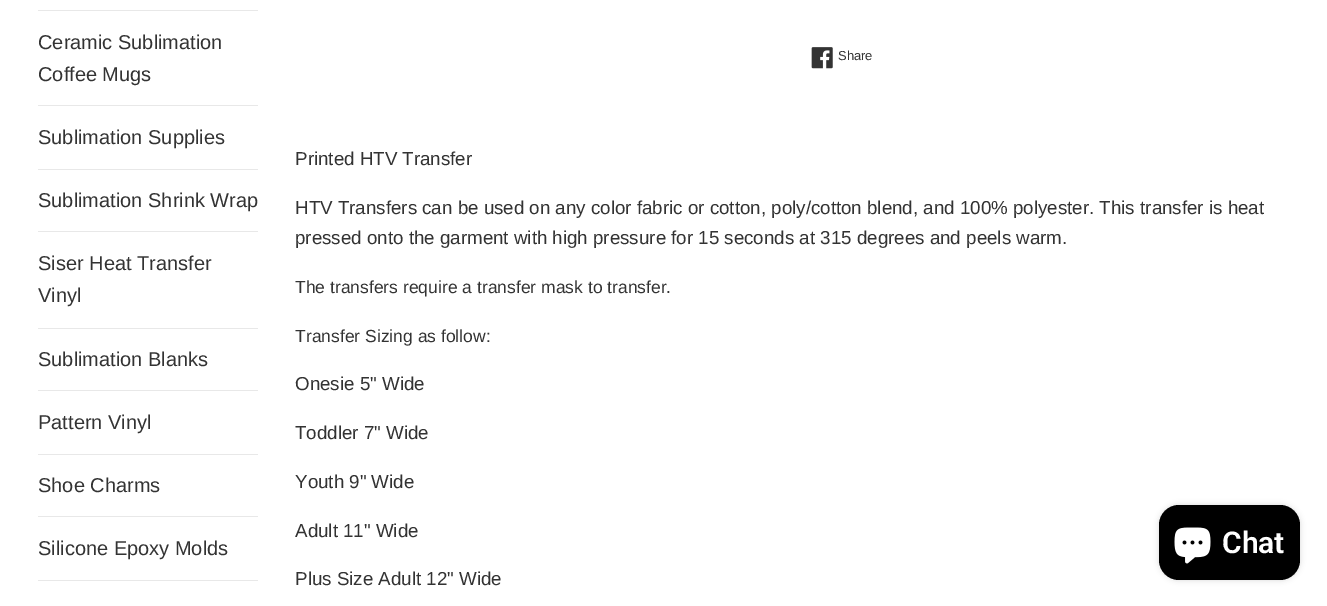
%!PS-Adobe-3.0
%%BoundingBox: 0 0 1327 606
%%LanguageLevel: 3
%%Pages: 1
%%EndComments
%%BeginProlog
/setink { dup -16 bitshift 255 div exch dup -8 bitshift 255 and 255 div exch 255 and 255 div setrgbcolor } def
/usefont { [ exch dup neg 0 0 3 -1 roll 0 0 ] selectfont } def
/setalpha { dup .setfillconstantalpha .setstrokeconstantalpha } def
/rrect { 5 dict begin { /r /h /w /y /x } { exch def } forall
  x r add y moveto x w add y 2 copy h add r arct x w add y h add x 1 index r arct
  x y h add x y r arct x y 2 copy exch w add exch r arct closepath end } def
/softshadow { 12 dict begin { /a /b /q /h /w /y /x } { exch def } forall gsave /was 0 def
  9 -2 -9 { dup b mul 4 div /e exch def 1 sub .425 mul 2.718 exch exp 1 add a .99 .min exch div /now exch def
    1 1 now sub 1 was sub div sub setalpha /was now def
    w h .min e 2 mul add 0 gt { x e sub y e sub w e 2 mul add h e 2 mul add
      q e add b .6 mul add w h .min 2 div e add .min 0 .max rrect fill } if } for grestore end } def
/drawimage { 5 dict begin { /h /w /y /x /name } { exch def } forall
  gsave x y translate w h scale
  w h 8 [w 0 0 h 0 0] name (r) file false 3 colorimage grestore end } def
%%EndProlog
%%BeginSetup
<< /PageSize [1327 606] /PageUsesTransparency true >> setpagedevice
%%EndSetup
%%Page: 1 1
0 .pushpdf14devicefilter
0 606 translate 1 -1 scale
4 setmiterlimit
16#FFFFFF setink
0 0 1327 606 rectfill
16#E8E8E8 setink
38 10 220 1 rectfill
38 105 220 1 rectfill
/LiberationSans-Regular 20 usefont
16#333333 setink
38 49 moveto (Ceramic Sublimation) show
38 81 moveto (Coffee Mugs) show
16#E8E8E8 setink
38 169 220 1 rectfill
16#333333 setink
38 144 moveto (Sublimation Supplies) show
16#E8E8E8 setink
38 231 220 1 rectfill
16#333333 setink
38 207 moveto (Sublimation Shrink Wrap) show
16#E8E8E8 setink
38 328 220 1 rectfill
16#333333 setink
38 270 moveto (Siser Heat Transfer) show
38 302 moveto (Vinyl) show
16#E8E8E8 setink
38 390 220 1 rectfill
16#333333 setink
38 366 moveto (Sublimation Blanks) show
16#E8E8E8 setink
38 454 220 1 rectfill
16#333333 setink
38 429 moveto (Pattern Vinyl) show
16#E8E8E8 setink
38 516 220 1 rectfill
16#333333 setink
38 492 moveto (Shoe Charms) show
16#E8E8E8 setink
38 580 220 1 rectfill
16#333333 setink
38 555 moveto (Silicone Epoxy Molds) show
(img1.raw) 811 47 22 22 drawimage
/LiberationSans-Regular 13 usefont
838 60 moveto (Share) show
/LiberationSans-Regular 18.75 usefont
[
    [(Printed HTV Transfer) 295 165]
    [(HTV Transfers can be used on any color fabric or cotton, poly/cotton blend, and 100% polyester. This transfer is heat) 295 214]
    [(pressed onto the garment with high pressure for 15 seconds at 315 degrees and peels warm.) 295 244]
] { aload pop moveto show } forall
/LiberationSans-Regular 17.5 usefont
295 293 moveto (The transfers require a transfer mask to transfer.) show
295 342 moveto (Transfer Sizing as follow:) show
/LiberationSans-Regular 18.75 usefont
[
    [(Onesie 5" Wide) 295 390]
    [(Toddler 7" Wide) 295 439]
    [(Youth 9" Wide) 295 488]
    [(Adult 11" Wide) 295 537]
    [(Plus Size Adult 12" Wide) 295 585]
] { aload pop moveto show } forall
16#000000 setink
1159 505 141 75 20 3 0.15 softshadow
1159 505 141 75 20 rrect fill
(img2.raw) 1174 527 37 37 drawimage
/Roboto-SemiBold 30 usefont
16#FFFFFF setink
1222 553 moveto (Chat) show
.poppdf14devicefilter showpage
%%EOF
